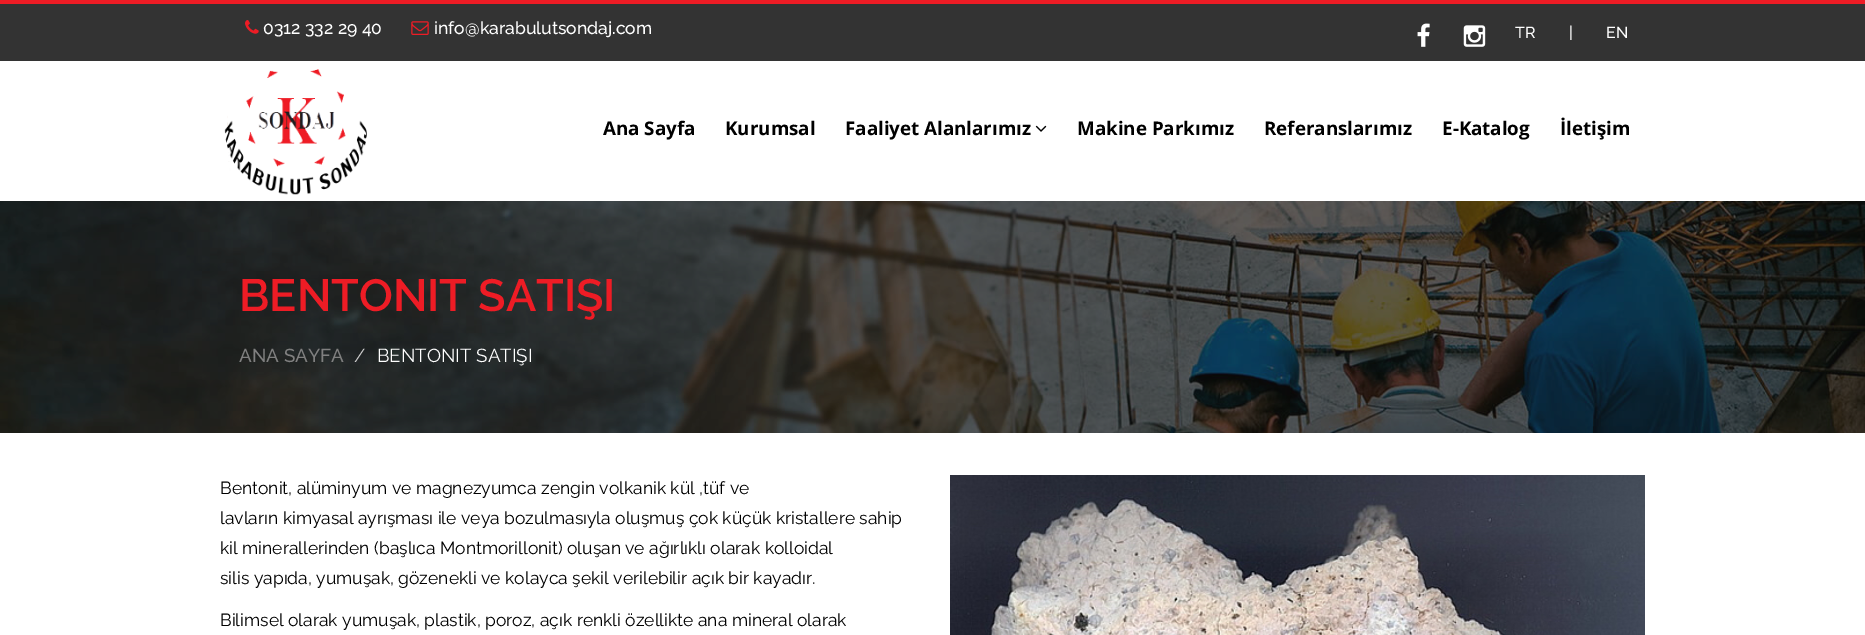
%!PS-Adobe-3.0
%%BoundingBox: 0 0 1865 635
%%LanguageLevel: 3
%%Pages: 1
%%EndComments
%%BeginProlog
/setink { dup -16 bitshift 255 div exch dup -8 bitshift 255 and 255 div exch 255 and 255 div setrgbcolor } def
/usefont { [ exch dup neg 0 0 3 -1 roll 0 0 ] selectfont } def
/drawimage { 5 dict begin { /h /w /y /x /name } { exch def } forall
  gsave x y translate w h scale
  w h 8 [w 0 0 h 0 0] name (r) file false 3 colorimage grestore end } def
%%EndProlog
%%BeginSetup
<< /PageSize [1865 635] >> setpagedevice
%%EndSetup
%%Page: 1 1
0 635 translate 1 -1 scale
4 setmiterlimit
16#FFFFFF setink
0 0 1865 635 rectfill
16#333333 setink
0 4 1865 57 rectfill
16#EE1C25 setink
0 0 1865 4 rectfill
(img1.raw) 245 20 14 14 drawimage
/Raleway-Medium 17.5 usefont
16#FFFFFF setink
263 34 moveto (0312 332 29 40) show
(img2.raw) 411 21 18 14 drawimage
434 34 moveto (info@karabulutsondaj.com) show
(img3.raw) 1417 23 13 24 drawimage
(img4.raw) 1463 25 23 22 drawimage
/Raleway-Medium 16 usefont
[
    [(TR) 1515 38]
    [(|) 1569 38]
    [(EN) 1606 38]
] { aload pop moveto show } forall
(img5.raw) 224 69 143 126 drawimage
/OpenSans-Bold 18.75 usefont
16#000000 setink
[
    [(Ana Sayfa) 603 135]
    [(Kurumsal) 725 135]
    [(Faaliyet Alanlarımız) 845 135]
] { aload pop moveto show } forall
(img6.raw) 1035 125 12 7 drawimage
[
    [(Makine Parkımız) 1077 135]
    [(Referanslarımız) 1264 135]
    [(E-Katalog) 1442 135]
    [(İletişim) 1560 135]
] { aload pop moveto show } forall
(img7.raw) 0 201 1865 232 drawimage
/Raleway-SemiBold 45 usefont
16#EE1C25 setink
239 311 moveto (BENTONIT SATIŞI) show
/Raleway-Medium 18.75 usefont
16#808080 setink
239 362 moveto (ANA SAYFA) show
/Raleway-Regular 18.75 usefont
16#CCCCCC setink
354 362 moveto (/) show
16#FFFFFF setink
377 362 moveto (BENTONIT SATIŞI) show
/Raleway-Regular 17.5 usefont
16#000000 setink
[
    [(Bentonit, alüminyum ve magnezyumca zengin volkanik kül ,tüf ve) 220 494]
    [(lavların kimyasal ayrışması ile veya bozulmasıyla oluşmuş çok küçük kristallere sahip) 220 524]
    [(kil minerallerinden \(başlıca Montmorillonit\) oluşan ve ağırlıklı olarak kolloidal) 220 554]
    [(silis yapıda, yumuşak, gözenekli ve kolayca şekil verilebilir açık bir kayadır.) 220 584]
    [(Bilimsel olarak yumuşak, plastik, poroz, açık renkli özellikte ana mineral olarak) 220 626]
] { aload pop moveto show } forall
(img8.raw) 950 475 695 160 drawimage
showpage
%%EOF
